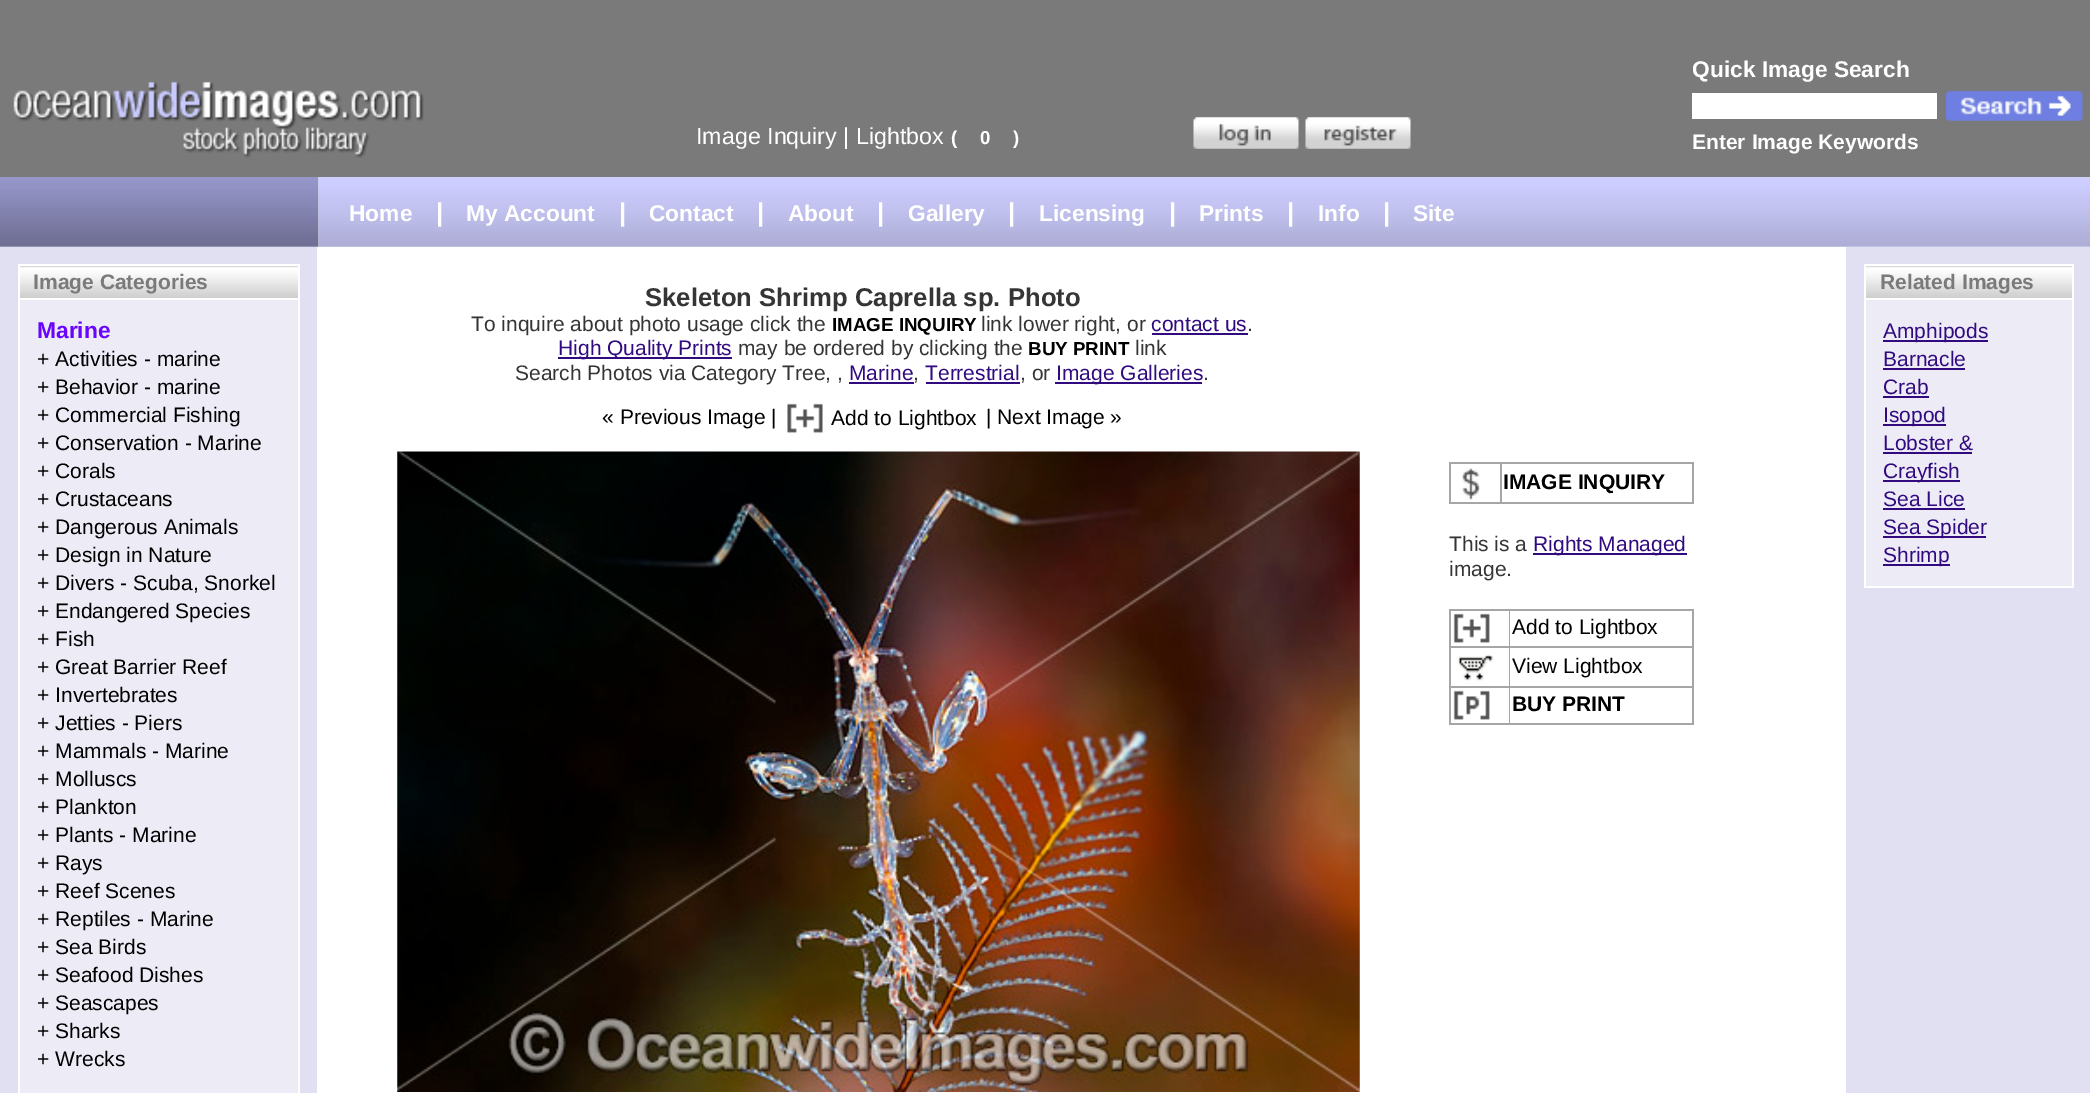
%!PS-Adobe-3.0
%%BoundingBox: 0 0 2090 1093
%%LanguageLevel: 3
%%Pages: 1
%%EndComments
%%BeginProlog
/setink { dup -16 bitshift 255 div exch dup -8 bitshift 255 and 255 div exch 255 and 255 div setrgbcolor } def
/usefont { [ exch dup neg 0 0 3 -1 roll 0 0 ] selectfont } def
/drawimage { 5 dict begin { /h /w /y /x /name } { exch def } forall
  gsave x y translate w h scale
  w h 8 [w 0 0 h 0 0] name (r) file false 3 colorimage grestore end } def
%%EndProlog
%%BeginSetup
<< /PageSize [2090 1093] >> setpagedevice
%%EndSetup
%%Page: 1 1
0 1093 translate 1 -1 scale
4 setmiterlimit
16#FFFFFF setink
0 0 2090 1093 rectfill
16#7A7A7A setink
0 0 2090 177 rectfill
(img1.raw) 13 81 411 77 drawimage
/LiberationSans-Regular 23.25 usefont
16#FFFFFF setink
696 144 moveto (Image Inquiry | Lightbox) show
/LiberationSans-Bold 18.75 usefont
[
    [(\() 951 144]
    [(0) 980 144]
    [(\)) 1013 144]
] { aload pop moveto show } forall
(img2.raw) 1193 117 106 32 drawimage
(img3.raw) 1305 117 106 32 drawimage
/LiberationSans-Bold 22.75 usefont
1692 77 moveto (Quick Image Search) show
1692 93 245 26 rectfill
(img4.raw) 1946 90 137 31 drawimage
/LiberationSans-Bold 21 usefont
1692 149 moveto (Enter Image Keywords) show
(img5.raw) 0 177 319 70 drawimage
(img6.raw) 318 177 1772 70 drawimage
/LiberationSans-Bold 22.75 usefont
349 221 moveto (Home) show
/LiberationSans-Bold 26 usefont
436 221 moveto (|) show
/LiberationSans-Bold 22.75 usefont
466 221 moveto (My Account) show
/LiberationSans-Bold 26 usefont
619 221 moveto (|) show
/LiberationSans-Bold 22.75 usefont
649 221 moveto (Contact) show
/LiberationSans-Bold 26 usefont
757 221 moveto (|) show
/LiberationSans-Bold 22.75 usefont
788 221 moveto (About) show
/LiberationSans-Bold 26 usefont
877 221 moveto (|) show
/LiberationSans-Bold 22.75 usefont
908 221 moveto (Gallery) show
/LiberationSans-Bold 26 usefont
1008 221 moveto (|) show
/LiberationSans-Bold 22.75 usefont
1039 221 moveto (Licensing) show
/LiberationSans-Bold 26 usefont
1169 221 moveto (|) show
/LiberationSans-Bold 22.75 usefont
1199 221 moveto (Prints) show
/LiberationSans-Bold 26 usefont
1287 221 moveto (|) show
/LiberationSans-Bold 22.75 usefont
1318 221 moveto (Info) show
/LiberationSans-Bold 26 usefont
1383 221 moveto (|) show
/LiberationSans-Bold 22.75 usefont
1413 221 moveto (Site) show
[
    [0 247 317 846 16#E0E0F2]
    [18 264 281 2 16#FFFFFF]
    [298 264 2 829 16#FFFFFF]
    [18 264 2 829 16#FFFFFF]
] { aload pop setink rectfill } forall
(img7.raw) 20 266 278 32 drawimage
/LiberationSans-Bold 21 usefont
16#7A7A7A setink
33 289 moveto (Image Categories) show
16#EDEBF6 setink
20 300 278 793 rectfill
16#FFFFFF setink
18 298 281 2 rectfill
/LiberationSans-Bold 22.75 usefont
16#6905FF setink
37 338 moveto (Marine) show
/LiberationSans-Regular 21 usefont
16#000000 setink
[
    [(+ Activities - marine) 37 366]
    [(+ Behavior - marine) 37 394]
    [(+ Commercial Fishing) 37 422]
    [(+ Conservation - Marine) 37 450]
    [(+ Corals) 37 478]
    [(+ Crustaceans) 37 506]
    [(+ Dangerous Animals) 37 534]
    [(+ Design in Nature) 37 562]
    [(+ Divers - Scuba, Snorkel) 37 590]
    [(+ Endangered Species) 37 618]
    [(+ Fish) 37 646]
    [(+ Great Barrier Reef) 37 674]
    [(+ Invertebrates) 37 702]
    [(+ Jetties - Piers) 37 730]
    [(+ Mammals - Marine) 37 758]
    [(+ Molluscs) 37 786]
    [(+ Plankton) 37 814]
    [(+ Plants - Marine) 37 842]
    [(+ Rays) 37 870]
    [(+ Reef Scenes) 37 898]
    [(+ Reptiles - Marine) 37 926]
    [(+ Sea Birds) 37 954]
    [(+ Seafood Dishes) 37 982]
    [(+ Seascapes) 37 1010]
    [(+ Sharks) 37 1038]
    [(+ Wrecks) 37 1066]
] { aload pop moveto show } forall
/LiberationSans-Bold 25.7 usefont
16#353535 setink
645 306 moveto (Skeleton Shrimp Caprella sp. Photo) show
/LiberationSans-Regular 21 usefont
471 331 moveto (To inquire about photo usage click the) show
/LiberationSans-Bold 18.75 usefont
16#000000 setink
832 331 moveto (IMAGE INQUIRY) show
/LiberationSans-Regular 21 usefont
16#353535 setink
981 331 moveto (link lower right, or) show
16#310A80 setink
1151 331 moveto (contact us) show
16#353535 setink
1247 331 moveto (.) show
16#310A80 setink
1152 333 96 2 rectfill
558 357 174 2 rectfill
558 355 moveto (High Quality Prints) show
16#353535 setink
738 355 moveto (may be ordered by clicking the) show
/LiberationSans-Bold 18.75 usefont
16#000000 setink
1028 355 moveto (BUY PRINT) show
/LiberationSans-Regular 21 usefont
16#353535 setink
1135 355 moveto (link) show
515 380 moveto (Search Photos via Category Tree, ,) show
16#310A80 setink
849 380 moveto (Marine) show
16#353535 setink
913 380 moveto (,) show
16#310A80 setink
849 382 65 2 rectfill
926 382 94 2 rectfill
925 380 moveto (Terrestrial) show
16#353535 setink
1020 380 moveto (, or) show
16#310A80 setink
1055 382 147 2 rectfill
1056 380 moveto (Image Galleries) show
16#353535 setink
1203 380 moveto (.) show
16#000000 setink
602 424 moveto (« Previous Image |) show
(img8.raw) 787 403 36 30 drawimage
831 425 moveto (Add to Lightbox) show
986 424 moveto (| Next Image ») show
16#A6A6A6 setink
1449 462 245 42 rectfill
16#FFFFFF setink
1451 464 49 38 rectfill
(img9.raw) 1462 468 18 32 drawimage
1502 464 190 38 rectfill
/LiberationSans-Bold 21 usefont
16#000000 setink
1503 489 moveto (IMAGE INQUIRY) show
/LiberationSans-Regular 21 usefont
16#353535 setink
1449 551 moveto (This is a) show
16#310A80 setink
1533 553 154 2 rectfill
1533 551 moveto (Rights Managed) show
16#353535 setink
1449 576 moveto (image.) show
16#A6A6A6 setink
1449 609 245 116 rectfill
16#FFFFFF setink
1451 611 58 35 rectfill
(img10.raw) 1453 613 37 30 drawimage
1510 611 182 35 rectfill
16#000000 setink
1512 634 moveto (Add to Lightbox) show
16#FFFFFF setink
1451 648 58 38 rectfill
(img11.raw) 1457 654 37 27 drawimage
1510 648 182 38 rectfill
16#000000 setink
1512 673 moveto (View Lightbox) show
16#FFFFFF setink
1451 688 58 35 rectfill
(img12.raw) 1453 690 37 30 drawimage
1510 688 182 35 rectfill
/LiberationSans-Bold 21 usefont
16#000000 setink
1512 711 moveto (BUY PRINT) show
(img13.raw) 397 451 963 641 drawimage
[
    [1846 247 244 846 16#E0E0F2]
    [1864 264 210 2 16#FFFFFF]
    [2072 264 2 324 16#FFFFFF]
    [1864 586 210 2 16#FFFFFF]
    [1864 264 2 324 16#FFFFFF]
] { aload pop setink rectfill } forall
(img14.raw) 1866 266 206 32 drawimage
16#7A7A7A setink
1880 289 moveto (Related Images) show
[
    [1866 300 206 286 16#EDEBF6]
    [1864 298 210 2 16#FFFFFF]
    [1883 340 105 2 16#310A80]
] { aload pop setink rectfill } forall
/LiberationSans-Regular 21 usefont
1883 338 moveto (Amphipods) show
1883 366 moveto (Barnacle) show
1883 368 82 2 rectfill
1883 394 moveto (Crab) show
1883 396 46 2 rectfill
1883 424 63 2 rectfill
1883 422 moveto (Isopod) show
1883 450 moveto (Lobster &) show
1883 452 89 2 rectfill
1883 480 77 2 rectfill
1883 478 moveto (Crayfish) show
1883 506 moveto (Sea Lice) show
1883 508 82 2 rectfill
1883 536 103 2 rectfill
1883 534 moveto (Sea Spider) show
1883 564 67 2 rectfill
1883 562 moveto (Shrimp) show
showpage
%%EOF
